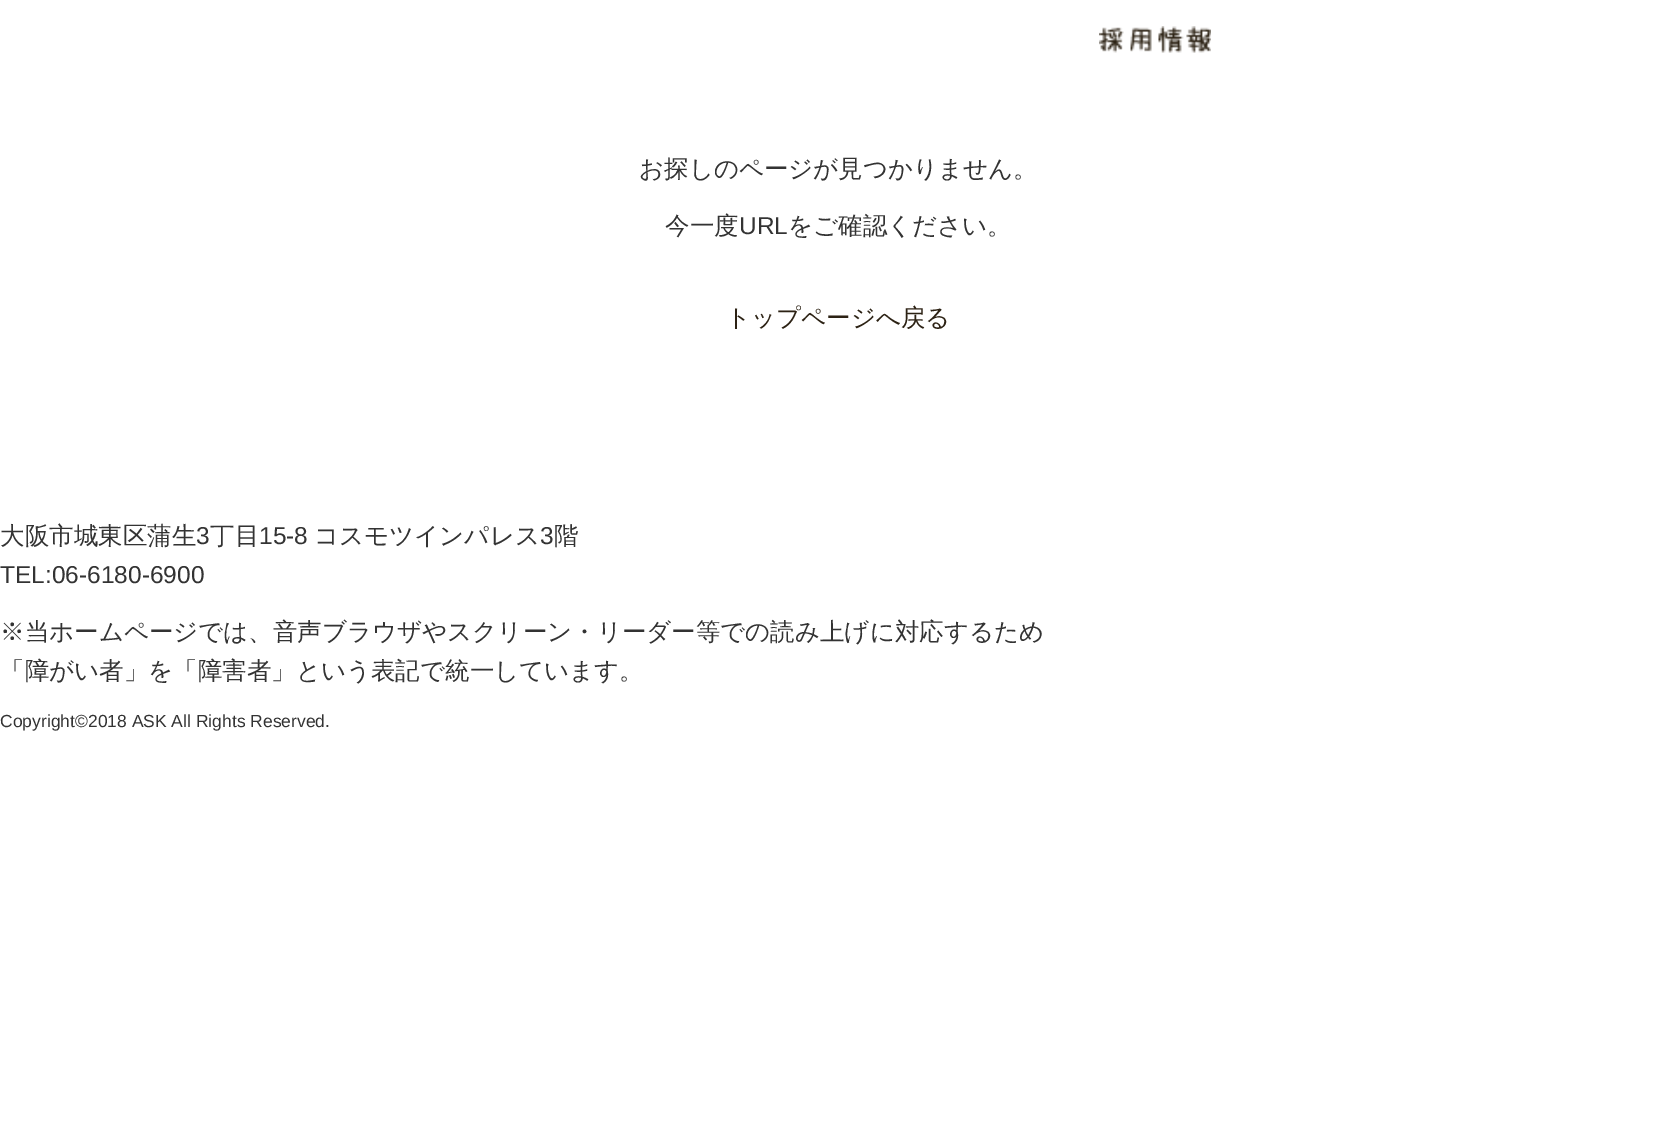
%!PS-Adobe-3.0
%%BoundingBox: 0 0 1676 1143
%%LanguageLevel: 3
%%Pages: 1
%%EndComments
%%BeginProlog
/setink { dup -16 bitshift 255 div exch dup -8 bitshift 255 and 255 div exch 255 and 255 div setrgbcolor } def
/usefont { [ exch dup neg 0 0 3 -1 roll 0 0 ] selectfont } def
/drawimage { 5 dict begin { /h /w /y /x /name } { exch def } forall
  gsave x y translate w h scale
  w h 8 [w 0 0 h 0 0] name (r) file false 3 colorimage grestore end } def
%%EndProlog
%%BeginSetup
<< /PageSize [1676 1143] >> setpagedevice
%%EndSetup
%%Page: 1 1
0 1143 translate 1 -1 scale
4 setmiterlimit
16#FFFFFF setink
0 0 1676 1143 rectfill
(img1.raw) 1099 26 112 27 drawimage
/WenQuanYiZenHei-Medium 24.5 usefont
16#333333 setink
639 177 moveto (お探しのページが見つかりません。) show
665 234 moveto (今一度) show
/LiberationSans-Regular 24.5 usefont
739 234 moveto (URL) show
/WenQuanYiZenHei-Medium 24.5 usefont
788 234 moveto (をご確認ください。) show
16#2C2214 setink
726 326 moveto (トップページへ戻る) show
16#333333 setink
0 544 moveto (大阪市城東区蒲生) show
/LiberationSans-Regular 24.5 usefont
196 544 moveto (3) show
/WenQuanYiZenHei-Medium 24.5 usefont
210 544 moveto (丁目) show
/LiberationSans-Regular 24.5 usefont
259 544 moveto (15-8) show
/WenQuanYiZenHei-Medium 24.5 usefont
314 544 moveto (コスモツインパレス) show
/LiberationSans-Regular 24.5 usefont
540 544 moveto (3) show
/WenQuanYiZenHei-Medium 24.5 usefont
554 544 moveto (階) show
/LiberationSans-Regular 24.5 usefont
0 583 moveto (TEL:06-6180-6900) show
/WenQuanYiZenHei-Medium 24.5 usefont
0 640 moveto (※当ホームページでは、音声ブラウザやスクリーン・リーダー等での読み上げに対応するため) show
0 679 moveto (「障がい者」を「障害者」という表記で統一しています。) show
/LiberationSans-Regular 17.5 usefont
0 727 moveto (Copyright©2018 ASK All Rights Reserved.) show
showpage
%%EOF
